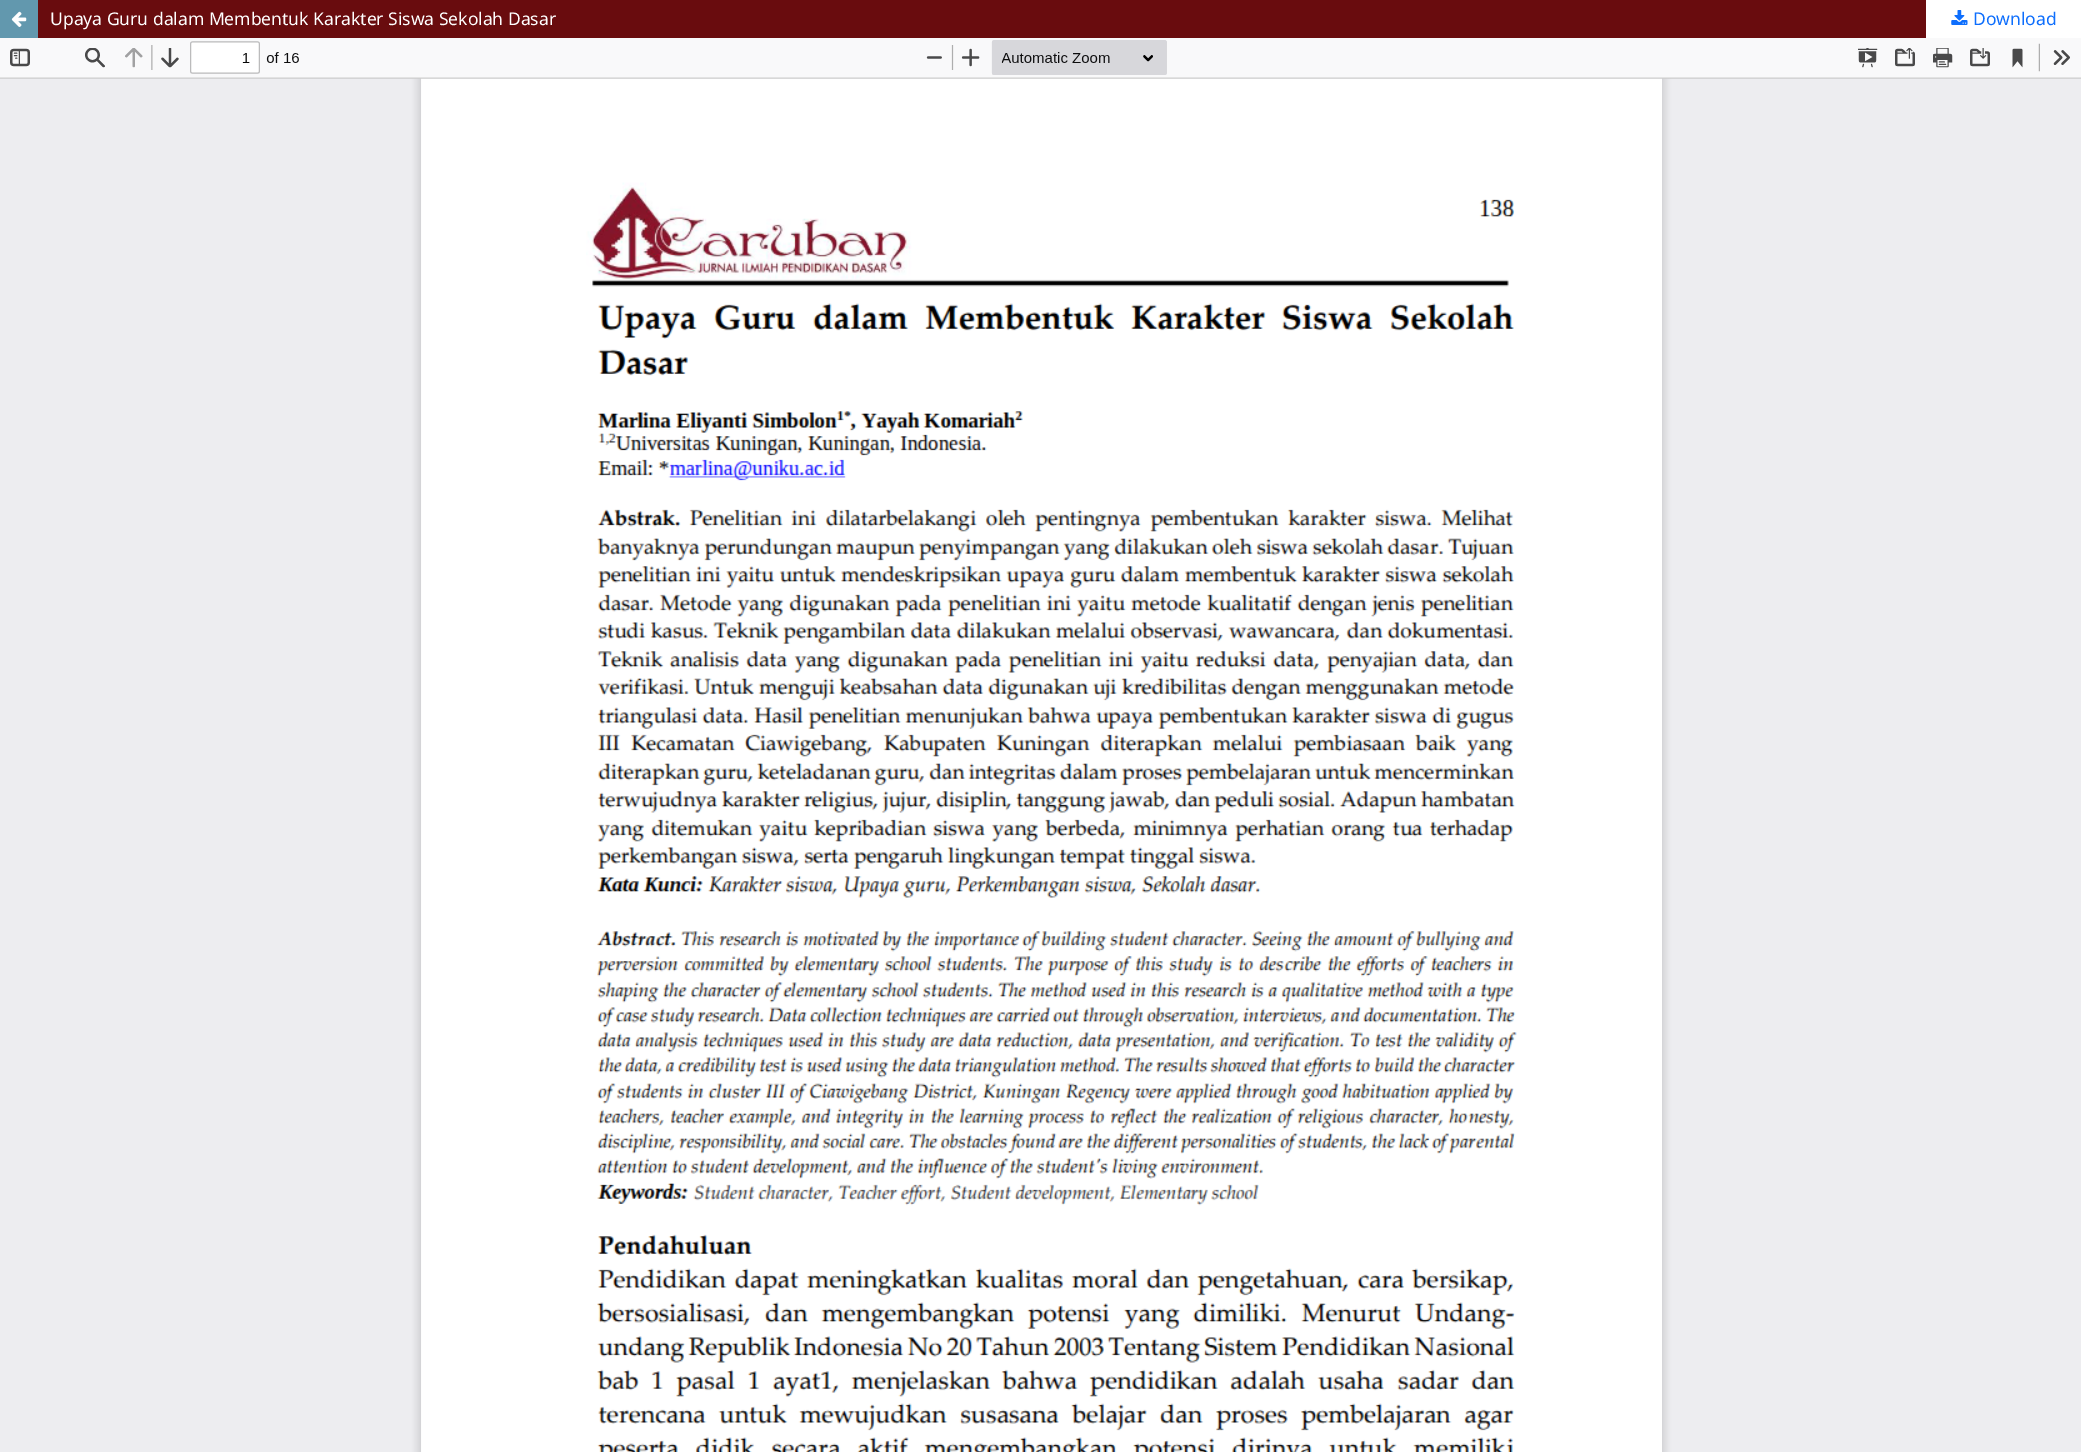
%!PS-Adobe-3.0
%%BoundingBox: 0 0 2081 1452
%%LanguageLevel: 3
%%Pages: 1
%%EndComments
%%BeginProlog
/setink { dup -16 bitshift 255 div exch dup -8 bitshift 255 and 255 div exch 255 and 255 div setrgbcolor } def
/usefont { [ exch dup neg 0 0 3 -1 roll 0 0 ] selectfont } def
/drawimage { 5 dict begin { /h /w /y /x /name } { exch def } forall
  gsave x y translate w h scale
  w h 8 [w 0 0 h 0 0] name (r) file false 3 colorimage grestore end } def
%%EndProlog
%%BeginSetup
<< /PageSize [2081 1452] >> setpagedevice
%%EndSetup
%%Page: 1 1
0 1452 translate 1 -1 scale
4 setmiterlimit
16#FFFFFF setink
0 0 2081 1452 rectfill
16#690C0E setink
38 0 1888 38 rectfill
16#6298AE setink
0 0 38 38 rectfill
(img1.raw) 11 11 16 16 drawimage
/NotoSans-Regular 17.5 usefont
16#FFFFFF setink
50 25 moveto (Upaya Guru dalam Membentuk Karakter Siswa Sekolah Dasar) show
(img2.raw) 1951 10 17 15 drawimage
16#0D6EFD setink
1973 25 moveto (Download) show
(img3.raw) 0 38 2081 1414 drawimage
showpage
%%EOF
